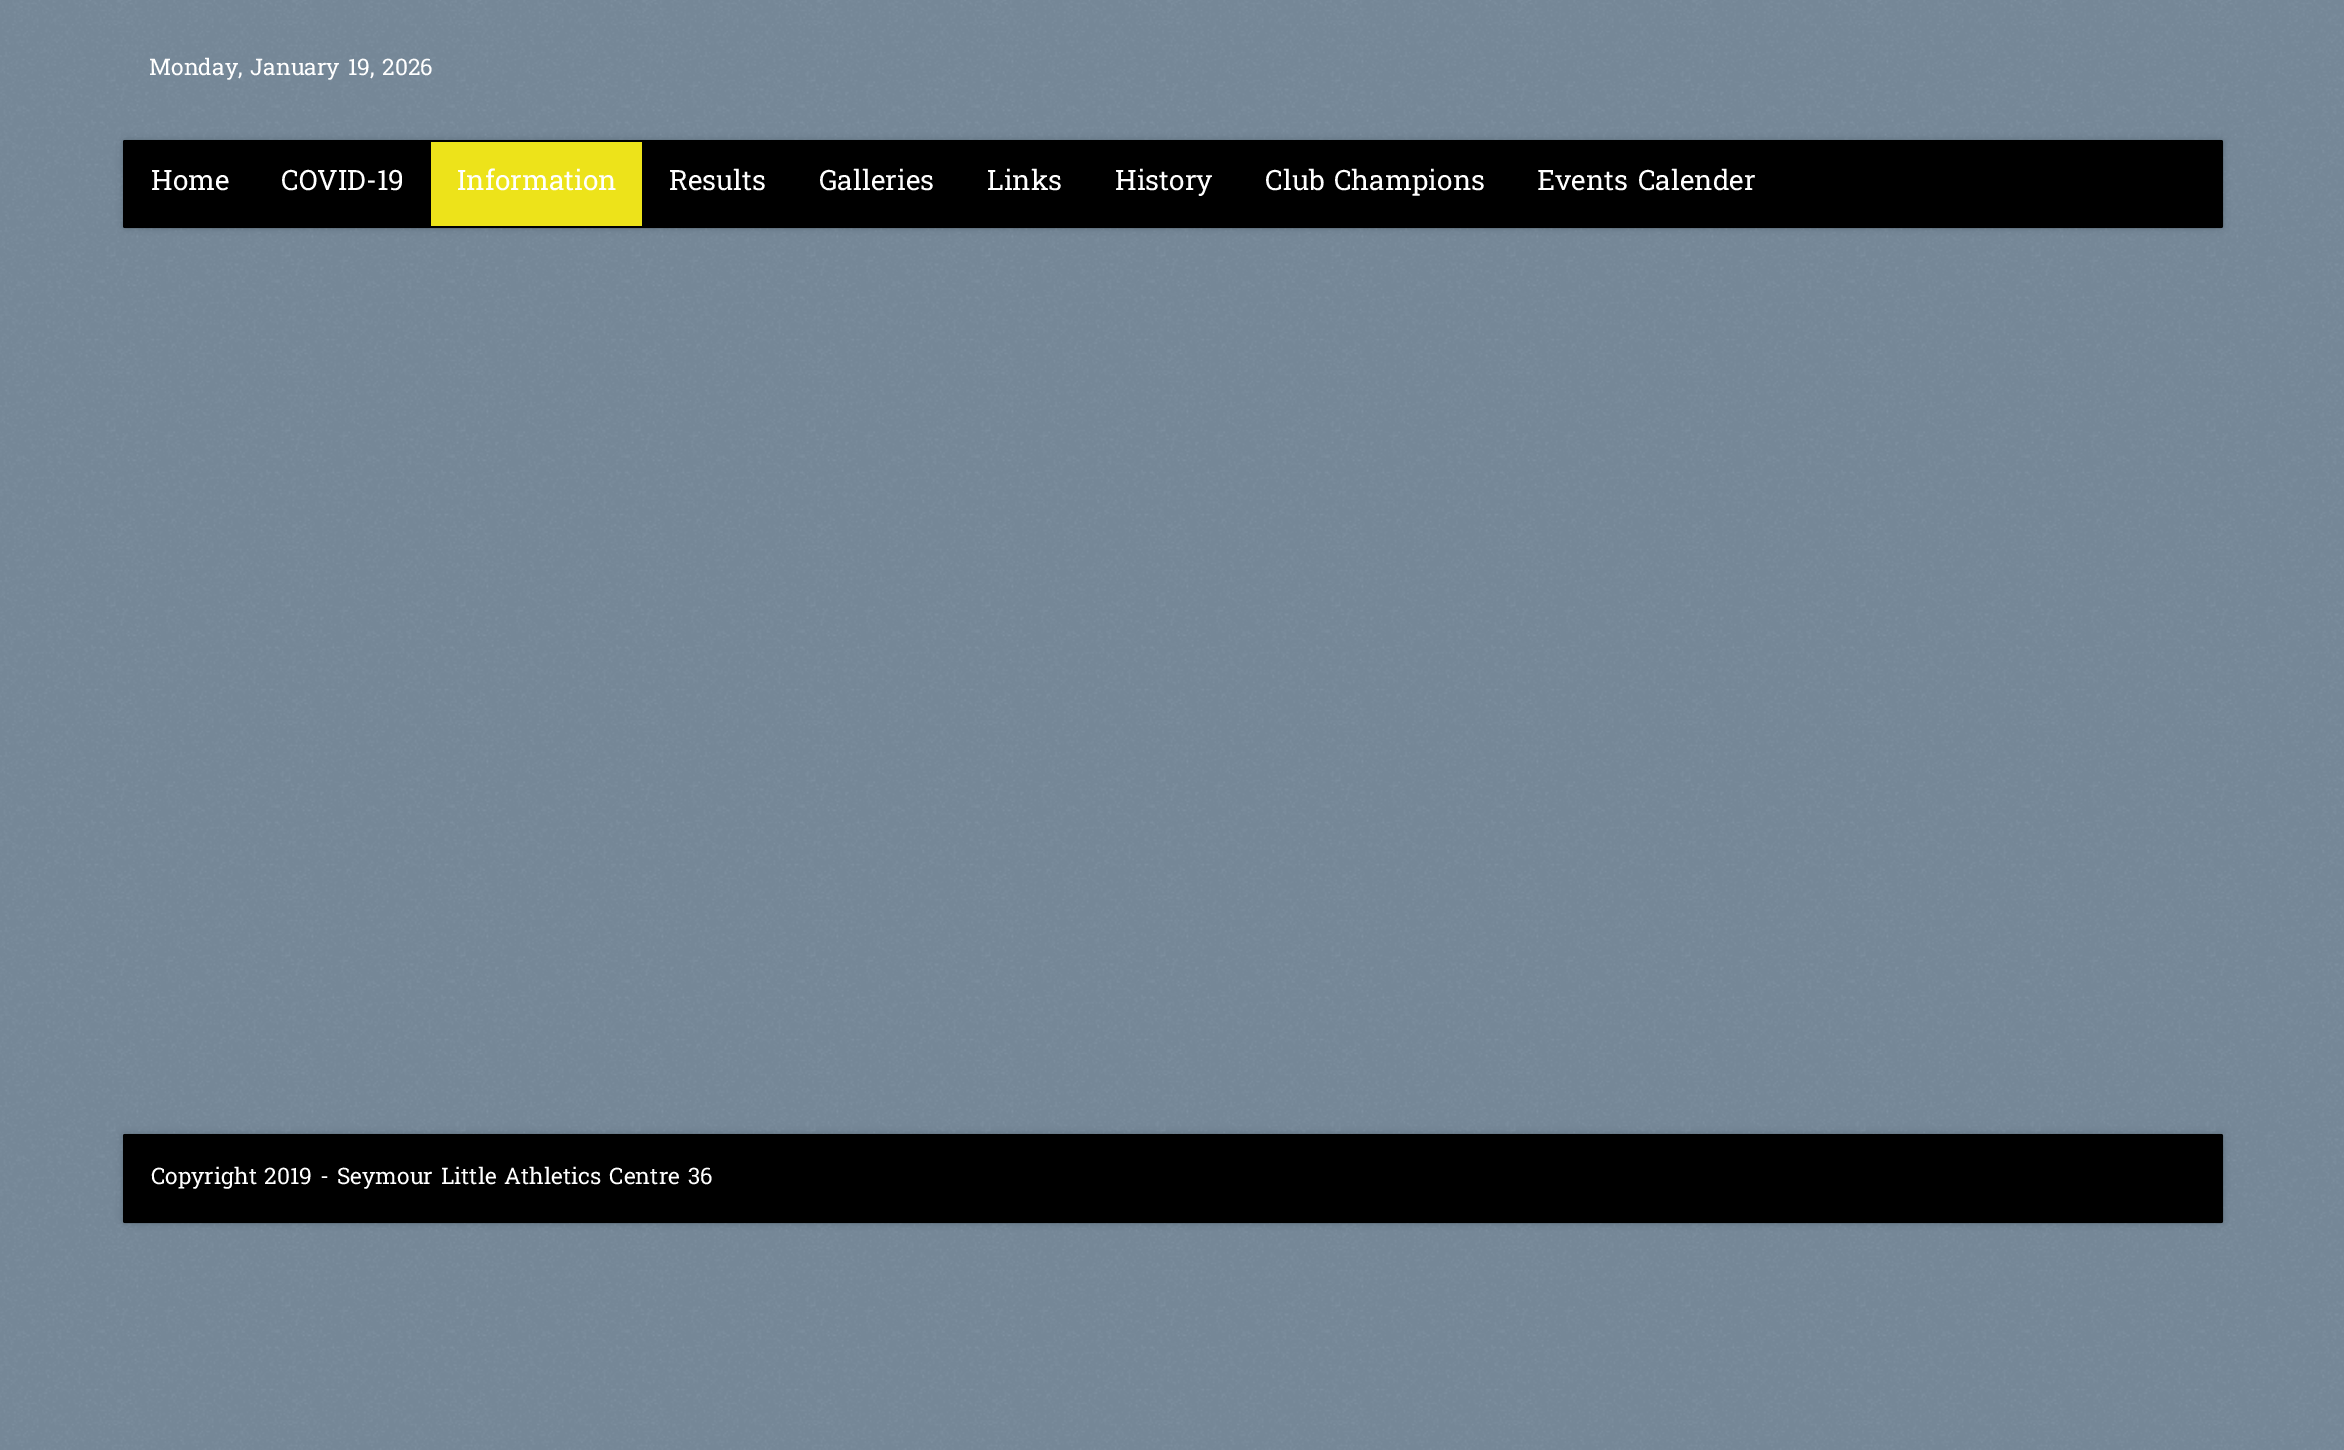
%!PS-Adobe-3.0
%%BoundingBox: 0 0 2344 1450
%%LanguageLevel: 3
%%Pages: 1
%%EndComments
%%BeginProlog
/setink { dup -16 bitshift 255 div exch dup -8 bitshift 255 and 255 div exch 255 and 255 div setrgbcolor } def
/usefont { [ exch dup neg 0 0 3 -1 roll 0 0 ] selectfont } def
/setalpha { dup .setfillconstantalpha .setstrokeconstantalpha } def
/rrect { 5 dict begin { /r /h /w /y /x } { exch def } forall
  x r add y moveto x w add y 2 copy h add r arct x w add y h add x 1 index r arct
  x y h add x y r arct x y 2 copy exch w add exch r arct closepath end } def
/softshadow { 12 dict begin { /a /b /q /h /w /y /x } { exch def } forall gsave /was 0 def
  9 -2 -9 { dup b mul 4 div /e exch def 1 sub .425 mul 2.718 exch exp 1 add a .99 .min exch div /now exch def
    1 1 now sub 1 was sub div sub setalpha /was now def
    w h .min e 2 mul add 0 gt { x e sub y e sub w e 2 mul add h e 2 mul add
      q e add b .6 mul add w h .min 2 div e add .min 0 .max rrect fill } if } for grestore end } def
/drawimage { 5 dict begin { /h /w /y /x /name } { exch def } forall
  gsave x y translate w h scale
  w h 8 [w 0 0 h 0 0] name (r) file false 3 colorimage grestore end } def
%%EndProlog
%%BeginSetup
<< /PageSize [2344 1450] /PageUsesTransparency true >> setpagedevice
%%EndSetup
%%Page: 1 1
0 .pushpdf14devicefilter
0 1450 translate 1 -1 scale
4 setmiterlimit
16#FFFFFF setink
0 0 2344 1450 rectfill
(img1.raw) 0 0 2344 1450 drawimage
/Hanuman-Regular 22.75 usefont
149 75 moveto (Monday, January 19, 2026) show
16#000000 setink
123 140 2100 88 2 3.5 0.2 softshadow
123 140 2100 88 2 rrect fill
0.2 setalpha
2 setlinewidth
124 141 2098 86 1 rrect stroke
/Hanuman-Regular 28 usefont
1 setalpha
16#FFFFFF setink
151 190 moveto (Home) show
281 190 moveto (COVID-19) show
16#EDE31A setink
431 142 211 84 rectfill
16#FFFFFF setink
[
    [(Information) 457 190]
    [(Results) 669 190]
    [(Galleries) 819 190]
    [(Links) 987 190]
    [(History) 1115 190]
    [(Club Champions) 1265 190]
    [(Events Calender) 1537 190]
] { aload pop moveto show } forall
16#000000 setink
123 1134 2100 89 2 3.5 0.2 softshadow
123 1134 2100 89 2 rrect fill
0.2 setalpha
124 1135 2098 87 1 rrect stroke
/Hanuman-Regular 22.75 usefont
1 setalpha
16#FFFFFF setink
151 1184 moveto (Copyright 2019 - Seymour Little Athletics Centre 36) show
.poppdf14devicefilter showpage
%%EOF
